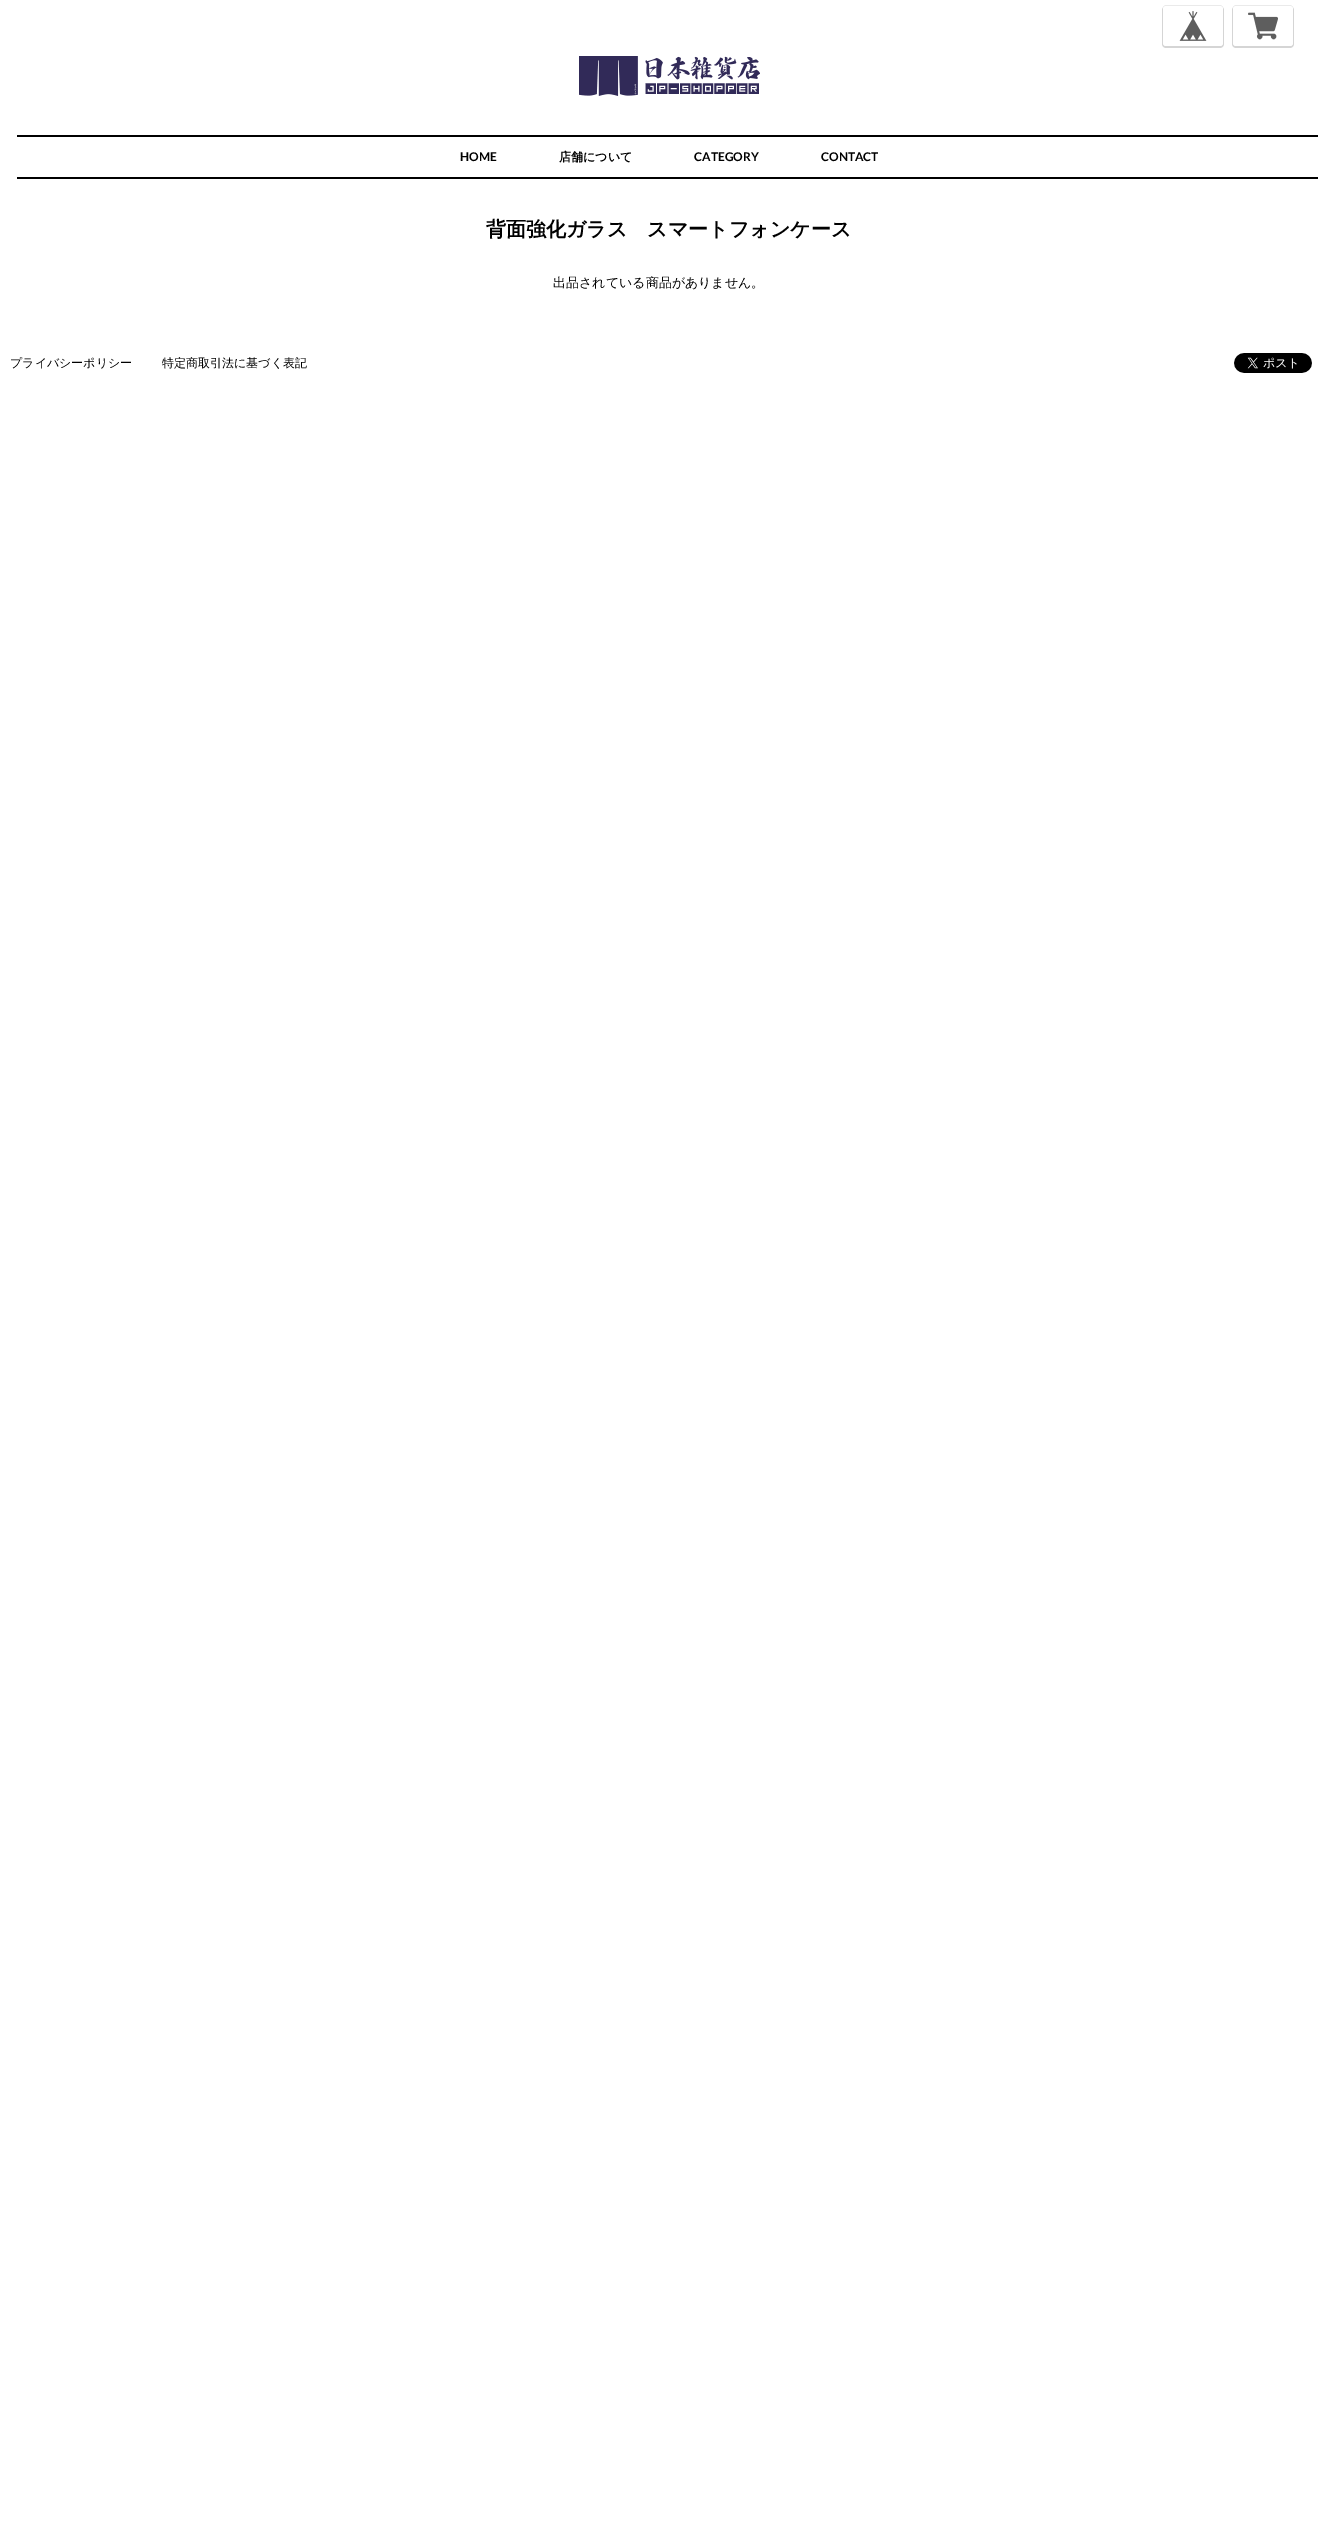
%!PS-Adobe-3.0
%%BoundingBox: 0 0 1318 2540
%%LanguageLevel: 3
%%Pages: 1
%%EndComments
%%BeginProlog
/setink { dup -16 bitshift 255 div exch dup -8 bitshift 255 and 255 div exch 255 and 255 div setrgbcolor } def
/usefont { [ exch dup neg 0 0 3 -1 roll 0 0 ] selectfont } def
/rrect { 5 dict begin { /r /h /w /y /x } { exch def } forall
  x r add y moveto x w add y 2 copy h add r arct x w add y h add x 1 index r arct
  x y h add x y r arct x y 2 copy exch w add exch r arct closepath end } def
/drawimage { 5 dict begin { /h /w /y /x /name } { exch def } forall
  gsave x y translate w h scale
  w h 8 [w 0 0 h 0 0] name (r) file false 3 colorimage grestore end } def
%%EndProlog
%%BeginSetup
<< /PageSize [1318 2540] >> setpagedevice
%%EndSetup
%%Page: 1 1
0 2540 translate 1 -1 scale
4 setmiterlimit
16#FFFFFF setink
0 0 1318 2540 rectfill
16#EAEAEA setink
1166 5 moveto 1164 5 1163 7 1163 9 curveto 1163 7 1164 6 1166 6 curveto 1220 6 lineto 1222 6 1223 7 1223 9 curveto 1223 7 1222 5 1220 5 curveto closepath fill
16#D5D5D5 setink
1166 6 moveto 1164 6 1162 8 1162 10 curveto 1162 44 lineto 1162 46 1164 48 1166 48 curveto 1220 48 lineto 1222 48 1224 46 1224 44 curveto 1224 10 lineto 1224 8 1222 6 1220 6 curveto 1222 6 1223 7 1223 9 curveto 1223 43 lineto 1223 45 1222 46 1220 46 curveto 1166 46 lineto 1164 46 1163 45 1163 43 curveto 1163 9 lineto 1163 7 1164 6 1166 6 curveto closepath fill
16#FFFFFF setink
1163 6 60 40 3 rrect fill
(img1.raw) 1179 11 28 30 drawimage
16#EAEAEA setink
1236 5 moveto 1234 5 1233 7 1233 9 curveto 1233 7 1234 6 1236 6 curveto 1290 6 lineto 1292 6 1293 7 1293 9 curveto 1293 7 1292 5 1290 5 curveto closepath fill
16#D5D5D5 setink
1236 6 moveto 1234 6 1232 8 1232 10 curveto 1232 44 lineto 1232 46 1234 48 1236 48 curveto 1290 48 lineto 1292 48 1294 46 1294 44 curveto 1294 10 lineto 1294 8 1292 6 1290 6 curveto 1292 6 1293 7 1293 9 curveto 1293 43 lineto 1293 45 1292 46 1290 46 curveto 1236 46 lineto 1234 46 1233 45 1233 43 curveto 1233 9 lineto 1233 7 1234 6 1236 6 curveto closepath fill
16#FFFFFF setink
1233 6 60 40 3 rrect fill
(img2.raw) 1248 12 30 28 drawimage
(img3.raw) 579 56 181 40 drawimage
16#000000 setink
17 135 1301 2 rectfill
17 177 1301 2 rectfill
/Lato-Bold 12 usefont
460 161 moveto (HOME) show
/WenQuanYiZenHei-Bold 12 usefont
559 161 moveto (店舗について) show
/Lato-Bold 12 usefont
694 161 moveto (CATEGORY) show
821 161 moveto (CONTACT) show
/WenQuanYiZenHei-Bold 20 usefont
486 236 moveto (背面強化ガラス　スマートフォンケース) show
/WenQuanYiZenHei-Medium 13 usefont
553 287 moveto (出品されている商品がありません。) show
/WenQuanYiZenHei-Medium 12 usefont
10 367 moveto (プライバシーポリシー) show
162 367 moveto (特定商取引法に基づく表記) show
(img4.raw) 1234 353 78 20 drawimage
showpage
%%EOF
